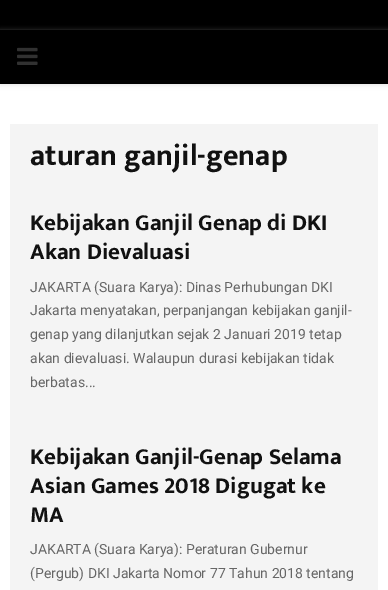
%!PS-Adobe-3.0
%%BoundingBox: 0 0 388 590
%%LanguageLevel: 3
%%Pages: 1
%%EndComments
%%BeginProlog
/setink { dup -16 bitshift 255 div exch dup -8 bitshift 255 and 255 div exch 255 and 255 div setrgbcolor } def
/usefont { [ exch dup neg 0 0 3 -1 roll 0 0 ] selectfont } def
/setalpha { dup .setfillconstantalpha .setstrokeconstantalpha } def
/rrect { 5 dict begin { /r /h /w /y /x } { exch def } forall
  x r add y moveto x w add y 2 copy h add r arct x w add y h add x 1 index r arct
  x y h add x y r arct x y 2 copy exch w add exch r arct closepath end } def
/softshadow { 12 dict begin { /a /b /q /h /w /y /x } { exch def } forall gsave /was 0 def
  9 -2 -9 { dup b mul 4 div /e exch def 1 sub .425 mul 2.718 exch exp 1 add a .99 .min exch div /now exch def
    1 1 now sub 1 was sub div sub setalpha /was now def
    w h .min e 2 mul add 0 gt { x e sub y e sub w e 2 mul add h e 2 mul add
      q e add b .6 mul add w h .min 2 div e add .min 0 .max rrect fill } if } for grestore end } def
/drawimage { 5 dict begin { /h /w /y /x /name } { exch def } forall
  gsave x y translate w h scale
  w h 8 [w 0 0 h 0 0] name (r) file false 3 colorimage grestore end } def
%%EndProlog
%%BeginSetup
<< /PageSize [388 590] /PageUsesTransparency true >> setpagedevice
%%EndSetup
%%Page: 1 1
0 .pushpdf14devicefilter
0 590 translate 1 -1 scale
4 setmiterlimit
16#FFFFFF setink
0 0 388 590 rectfill
16#000000 setink
0 0 388 30 rectfill
16#BEBEBE setink
0 31 388 54 0 2.5 0.46 softshadow
16#000000 setink
0 30 388 54 rectfill
(img1.raw) 17 47 21 18 drawimage
16#F4F4F4 setink
10 124 368 466 rectfill
/MuktaVaani-Bold 30 usefont
16#111111 setink
30 165 moveto (aturan ganjil-genap) show
/MuktaVaani-Bold 23 usefont
30 230 moveto (Kebijakan Ganjil Genap di DKI) show
30 259 moveto (Akan Dievaluasi) show
/Roboto-Regular 14 usefont
16#666666 setink
[
    [(JAKARTA \(Suara Karya\): Dinas Perhubungan DKI) 30 292]
    [(Jakarta menyatakan, perpanjangan kebijakan ganjil-) 30 315]
    [(genap yang dilanjutkan sejak 2 Januari 2019 tetap) 30 339]
    [(akan dievaluasi. Walaupun durasi kebijakan tidak) 30 363]
    [(berbatas...) 30 387]
] { aload pop moveto show } forall
/MuktaVaani-Bold 23 usefont
16#111111 setink
[
    [(Kebijakan Ganjil-Genap Selama) 30 464]
    [(Asian Games 2018 Digugat ke) 30 493]
    [(MA) 30 522]
] { aload pop moveto show } forall
/Roboto-Regular 14 usefont
16#666666 setink
30 554 moveto (JAKARTA \(Suara Karya\): Peraturan Gubernur) show
30 578 moveto (\(Pergub\) DKI Jakarta Nomor 77 Tahun 2018 tentang) show
.poppdf14devicefilter showpage
%%EOF
